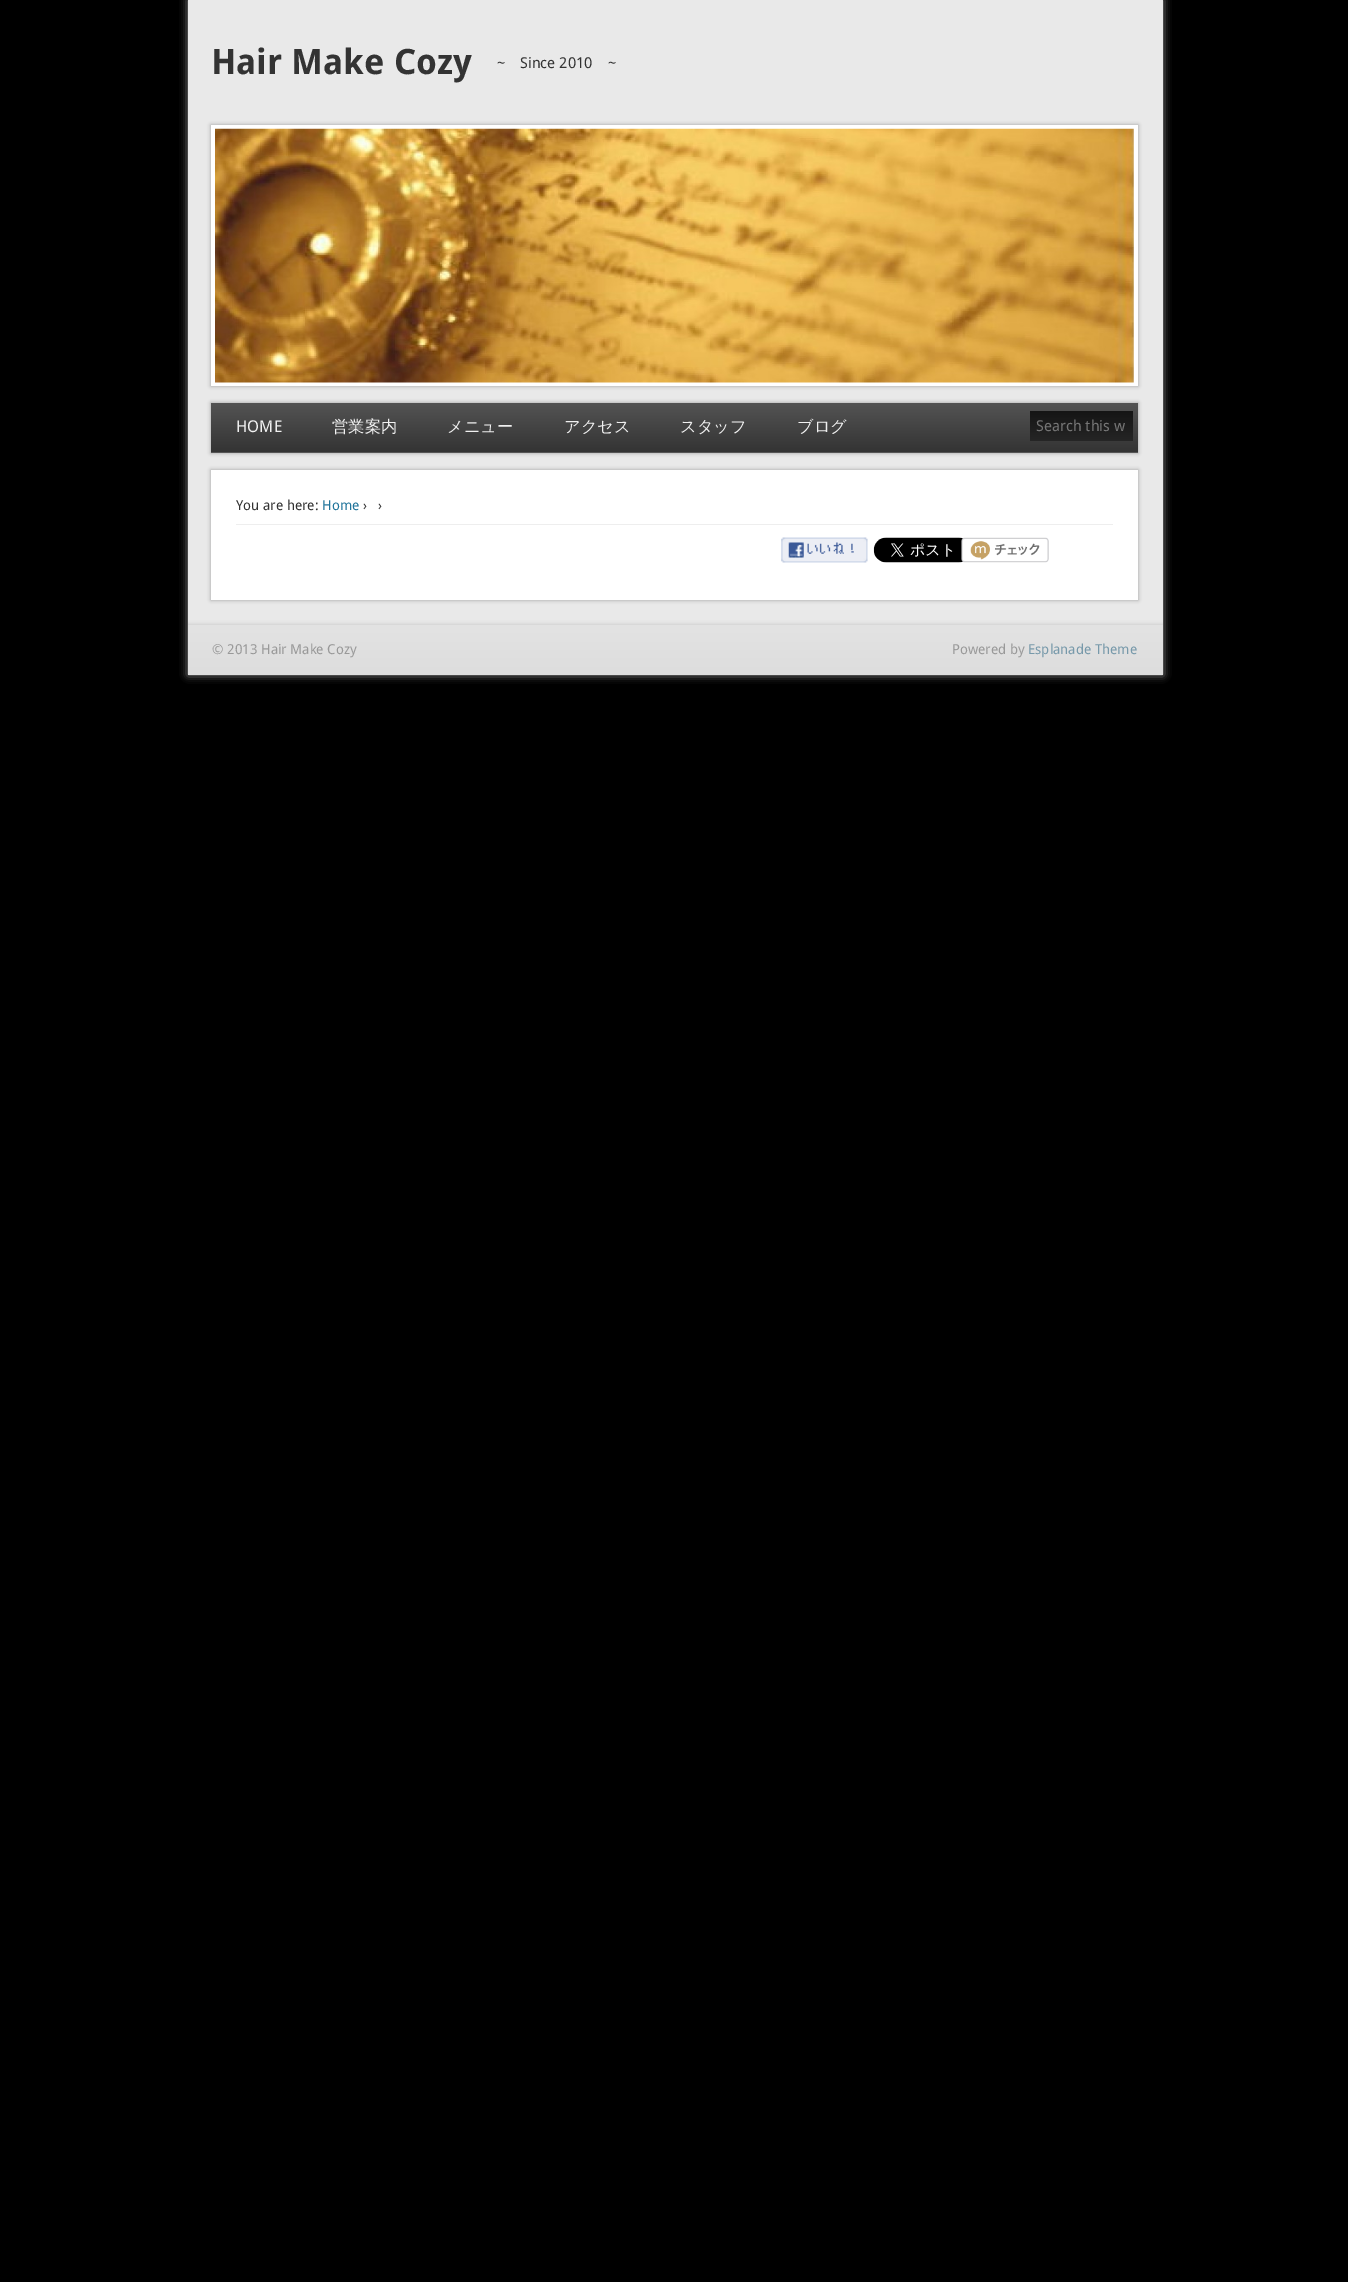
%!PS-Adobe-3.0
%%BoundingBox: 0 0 1348 2282
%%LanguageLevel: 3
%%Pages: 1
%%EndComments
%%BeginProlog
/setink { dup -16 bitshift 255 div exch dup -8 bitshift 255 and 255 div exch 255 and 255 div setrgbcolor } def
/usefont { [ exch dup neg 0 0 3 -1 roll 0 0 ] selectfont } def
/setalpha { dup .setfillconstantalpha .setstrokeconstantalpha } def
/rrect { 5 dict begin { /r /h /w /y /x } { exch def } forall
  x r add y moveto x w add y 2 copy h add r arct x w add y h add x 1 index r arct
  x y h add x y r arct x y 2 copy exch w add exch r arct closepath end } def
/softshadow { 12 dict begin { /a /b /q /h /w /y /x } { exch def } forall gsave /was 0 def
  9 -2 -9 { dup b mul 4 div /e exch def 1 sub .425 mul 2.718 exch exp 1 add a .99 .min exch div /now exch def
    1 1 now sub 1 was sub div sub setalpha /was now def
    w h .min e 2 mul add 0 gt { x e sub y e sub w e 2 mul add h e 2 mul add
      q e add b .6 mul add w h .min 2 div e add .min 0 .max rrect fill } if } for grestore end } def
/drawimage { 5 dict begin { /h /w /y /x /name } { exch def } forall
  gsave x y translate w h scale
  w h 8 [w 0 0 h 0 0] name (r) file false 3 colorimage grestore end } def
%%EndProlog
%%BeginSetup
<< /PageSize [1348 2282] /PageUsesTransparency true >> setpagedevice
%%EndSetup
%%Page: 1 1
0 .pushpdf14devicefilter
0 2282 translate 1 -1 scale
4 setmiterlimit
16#000000 setink
0 0 1348 2282 rectfill
16#999999 setink
188 0 975 675 0 4 1 softshadow
16#E9E9E9 setink
188 0 975 625 rectfill
/DroidSans-Bold 35 usefont
16#333333 setink
211 74 moveto (Hair Make Cozy) show
/DroidSans-Regular 15 usefont
[
    [(~) 497 68]
    [(Since 2010) 520 68]
    [(~) 608 68]
] { aload pop moveto show } forall
16#999999 setink
211 125 927 261 0 2 1 softshadow
16#FFFFFF setink
211 125 927 261 rectfill
(img1.raw) 215 128 919 255 drawimage
16#999999 setink
211 403 927 50 0 2 1 softshadow
gsave 211 403 moveto 1138 403 lineto 1138 453 lineto 211 453 lineto closepath clip newpath
<< /ShadingType 2 /ColorSpace /DeviceRGB /Coords [674 402 674 503] /Extend [true true] /Function << /FunctionType 3 /Domain [0 1] /Functions [<< /FunctionType 2 /Domain [0 1] /C0 [0.333 0.333 0.333] /C1 [0.2 0.2 0.2] /N 1 >> << /FunctionType 2 /Domain [0 1] /C0 [0.333 0.333 0.333] /C1 [0.2 0.2 0.2] /N 1 >>] /Bounds [0.5] /Encode [0 1 0 1] >> >> shfill grestore
/DroidSans-Regular 16.25 usefont
16#F0F0F0 setink
236 432 moveto (HOME) show
/WenQuanYiZenHei-Medium 16.25 usefont
[
    [(営業案内) 332 432]
    [(メニュー) 447 432]
    [(アクセス) 564 432]
    [(スタッフ) 680 432]
    [(ブログ) 797 432]
] { aload pop moveto show } forall
gsave 1030 411 moveto 1133 411 lineto 1133 441 lineto 1030 441 lineto closepath clip newpath
<< /ShadingType 2 /ColorSpace /DeviceRGB /Coords [1081 411 1081 441] /Extend [true true] /Function << /FunctionType 2 /Domain [0 1] /C0 [0.082 0.082 0.082] /C1 [0.145 0.145 0.145] /N 1 >> >> shfill grestore
/DroidSans-Regular 15 usefont
16#757575 setink
1036 431 moveto (Search this w) show
16#999999 setink
211 470 927 130 0 2 1 softshadow
16#FFFFFF setink
211 470 927 130 rectfill
16#EEEEEE setink
236 524 877 1 rectfill
/DroidSans-Regular 13.75 usefont
16#333333 setink
236 510 moveto (You are here:) show
16#21759B setink
322 510 moveto (Home) show
16#333333 setink
363 510 moveto (›) show
378 510 moveto (›) show
(img2.raw) 781 537 87 26 drawimage
(img3.raw) 873 537 90 26 drawimage
(img4.raw) 961 537 88 26 drawimage
gsave
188 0 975 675 rectclip
16#CCCCCC setink
188 624 975 50 0 2 1 softshadow
grestore
gsave 188 625 moveto 1163 625 lineto 1163 675 lineto 188 675 lineto closepath clip newpath
<< /ShadingType 2 /ColorSpace /DeviceRGB /Coords [675 625 675 675] /Extend [true true] /Function << /FunctionType 2 /Domain [0 1] /C0 [0.89 0.89 0.89] /C1 [0.867 0.867 0.867] /N 1 >> >> shfill grestore
16#999999 setink
212 654 moveto (© 2013 Hair Make Cozy) show
952 654 moveto (Powered by) show
16#7799AA setink
1028 654 moveto (Esplanade Theme) show
.poppdf14devicefilter showpage
%%EOF
